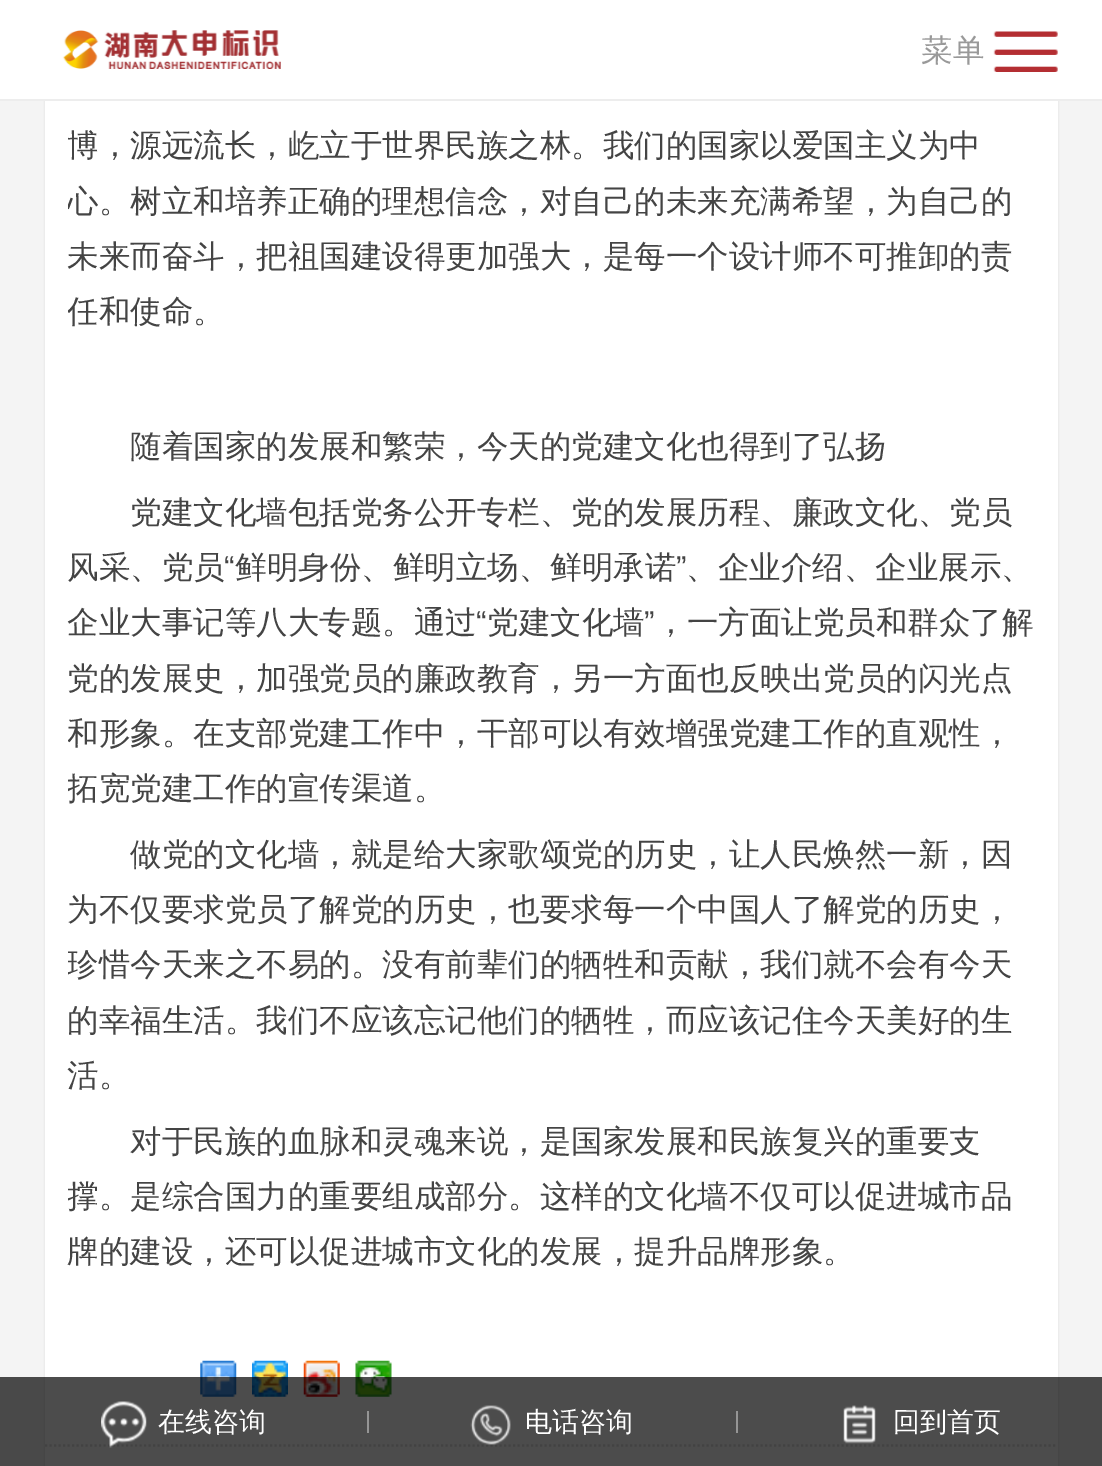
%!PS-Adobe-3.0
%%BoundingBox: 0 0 1102 1466
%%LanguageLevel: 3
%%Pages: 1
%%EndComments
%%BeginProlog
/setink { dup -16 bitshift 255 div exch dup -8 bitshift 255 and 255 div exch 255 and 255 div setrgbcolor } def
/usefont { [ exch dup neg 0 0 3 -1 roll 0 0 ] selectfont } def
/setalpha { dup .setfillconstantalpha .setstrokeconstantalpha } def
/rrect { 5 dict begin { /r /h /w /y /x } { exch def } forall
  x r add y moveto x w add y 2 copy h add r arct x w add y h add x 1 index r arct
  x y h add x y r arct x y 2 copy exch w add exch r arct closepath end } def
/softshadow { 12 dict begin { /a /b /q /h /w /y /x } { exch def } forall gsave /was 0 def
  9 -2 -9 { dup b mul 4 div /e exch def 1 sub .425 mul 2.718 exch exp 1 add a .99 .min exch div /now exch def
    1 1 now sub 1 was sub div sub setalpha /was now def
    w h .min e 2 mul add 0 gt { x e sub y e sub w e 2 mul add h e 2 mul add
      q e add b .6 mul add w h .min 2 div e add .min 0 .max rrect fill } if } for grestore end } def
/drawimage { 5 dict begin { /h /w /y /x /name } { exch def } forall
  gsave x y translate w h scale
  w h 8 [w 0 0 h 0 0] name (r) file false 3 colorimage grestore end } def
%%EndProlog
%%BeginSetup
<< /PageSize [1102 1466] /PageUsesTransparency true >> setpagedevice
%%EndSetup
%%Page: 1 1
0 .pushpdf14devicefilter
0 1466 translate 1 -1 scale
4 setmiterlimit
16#F4F4F4 setink
0 0 1102 1466 rectfill
16#000000 setink
45 -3 1013 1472 0 1 0.1 softshadow
16#FFFFFF setink
0 0 1102 99 rectfill
16#EDEDED setink
0 99 1102 2 rectfill
(img1.raw) 62 30 219 39 drawimage
/WenQuanYiZenHei-Medium 31.5 usefont
16#999999 setink
921 61 moveto (菜单) show
(img2.raw) 993 31 65 41 drawimage
16#FFFFFF setink
45 101 1013 1365 rectfill
gsave
68 0 967 1292 rectclip
16#444444 setink
67 156 moveto (博，源远流长，屹立于世界民族之林。我们的国家以爱国主义为中) show
67 212 moveto (心。树立和培养正确的理想信念，对自己的未来充满希望，为自己的) show
grestore
16#444444 setink
67 267 moveto (未来而奋斗，把祖国建设得更加强大，是每一个设计师不可推卸的责) show
gsave
68 0 967 1292 rectclip
67 322 moveto (任和使命。) show
grestore
[
    [(随着国家的发展和繁荣，今天的党建文化也得到了弘扬) 130 457]
    [(党建文化墙包括党务公开专栏、党的发展历程、廉政文化、党员) 130 523]
    [(风采、党员) 67 578]
] { aload pop moveto show } forall
/LiberationSans-Regular 31.5 usefont
224 578 moveto (“) show
/WenQuanYiZenHei-Medium 31.5 usefont
235 578 moveto (鲜明身份、鲜明立场、鲜明承诺) show
/LiberationSans-Regular 31.5 usefont
676 578 moveto (”) show
/WenQuanYiZenHei-Medium 31.5 usefont
686 578 moveto (、企业介绍、企业展示、) show
67 633 moveto (企业大事记等八大专题。通过) show
/LiberationSans-Regular 31.5 usefont
476 633 moveto (“) show
/WenQuanYiZenHei-Medium 31.5 usefont
487 633 moveto (党建文化墙) show
/LiberationSans-Regular 31.5 usefont
644 633 moveto (”) show
/WenQuanYiZenHei-Medium 31.5 usefont
655 633 moveto (，一方面让党员和群众了解) show
67 689 moveto (党的发展史，加强党员的廉政教育，另一方面也反映出党员的闪光点) show
gsave
68 0 967 1292 rectclip
67 744 moveto (和形象。在支部党建工作中，干部可以有效增强党建工作的直观性，) show
67 799 moveto (拓宽党建工作的宣传渠道。) show
grestore
130 865 moveto (做党的文化墙，就是给大家歌颂党的历史，让人民焕然一新，因) show
67 920 moveto (为不仅要求党员了解党的历史，也要求每一个中国人了解党的历史，) show
gsave
68 0 967 1292 rectclip
67 975 moveto (珍惜今天来之不易的。没有前辈们的牺牲和贡献，我们就不会有今天) show
grestore
[
    [(的幸福生活。我们不应该忘记他们的牺牲，而应该记住今天美好的生) 67 1031]
    [(活。) 67 1086]
    [(对于民族的血脉和灵魂来说，是国家发展和民族复兴的重要支) 130 1152]
] { aload pop moveto show } forall
gsave
68 0 967 1292 rectclip
67 1207 moveto (撑。是综合国力的重要组成部分。这样的文化墙不仅可以促进城市品) show
grestore
67 1262 moveto (牌的建设，还可以促进城市文化的发展，提升品牌形象。) show
(img3.raw) 200 1360 37 37 drawimage
(img4.raw) 252 1360 36 37 drawimage
(img5.raw) 303 1360 37 37 drawimage
(img6.raw) 355 1360 37 37 drawimage
16#DDDDDD setink
2.2 setlinewidth
[2.25 2.25] 0 setdash
45 1445.5 moveto 1057.5 1445.5 lineto stroke
0.7 setalpha
16#000000 setink
0 1377 1102 89 rectfill
1 setalpha
(img7.raw) 101 1401 46 47 drawimage
/WenQuanYiZenHei-Medium 27 usefont
16#FFFFFF setink
158 1431 moveto (在线咨询) show
16#959595 setink
367 1411 2 22 rectfill
(img8.raw) 470 1405 41 40 drawimage
16#FFFFFF setink
525 1431 moveto (电话咨询) show
16#959595 setink
736 1411 2 22 rectfill
(img9.raw) 843 1405 33 39 drawimage
16#FFFFFF setink
893 1431 moveto (回到首页) show
.poppdf14devicefilter showpage
%%EOF
